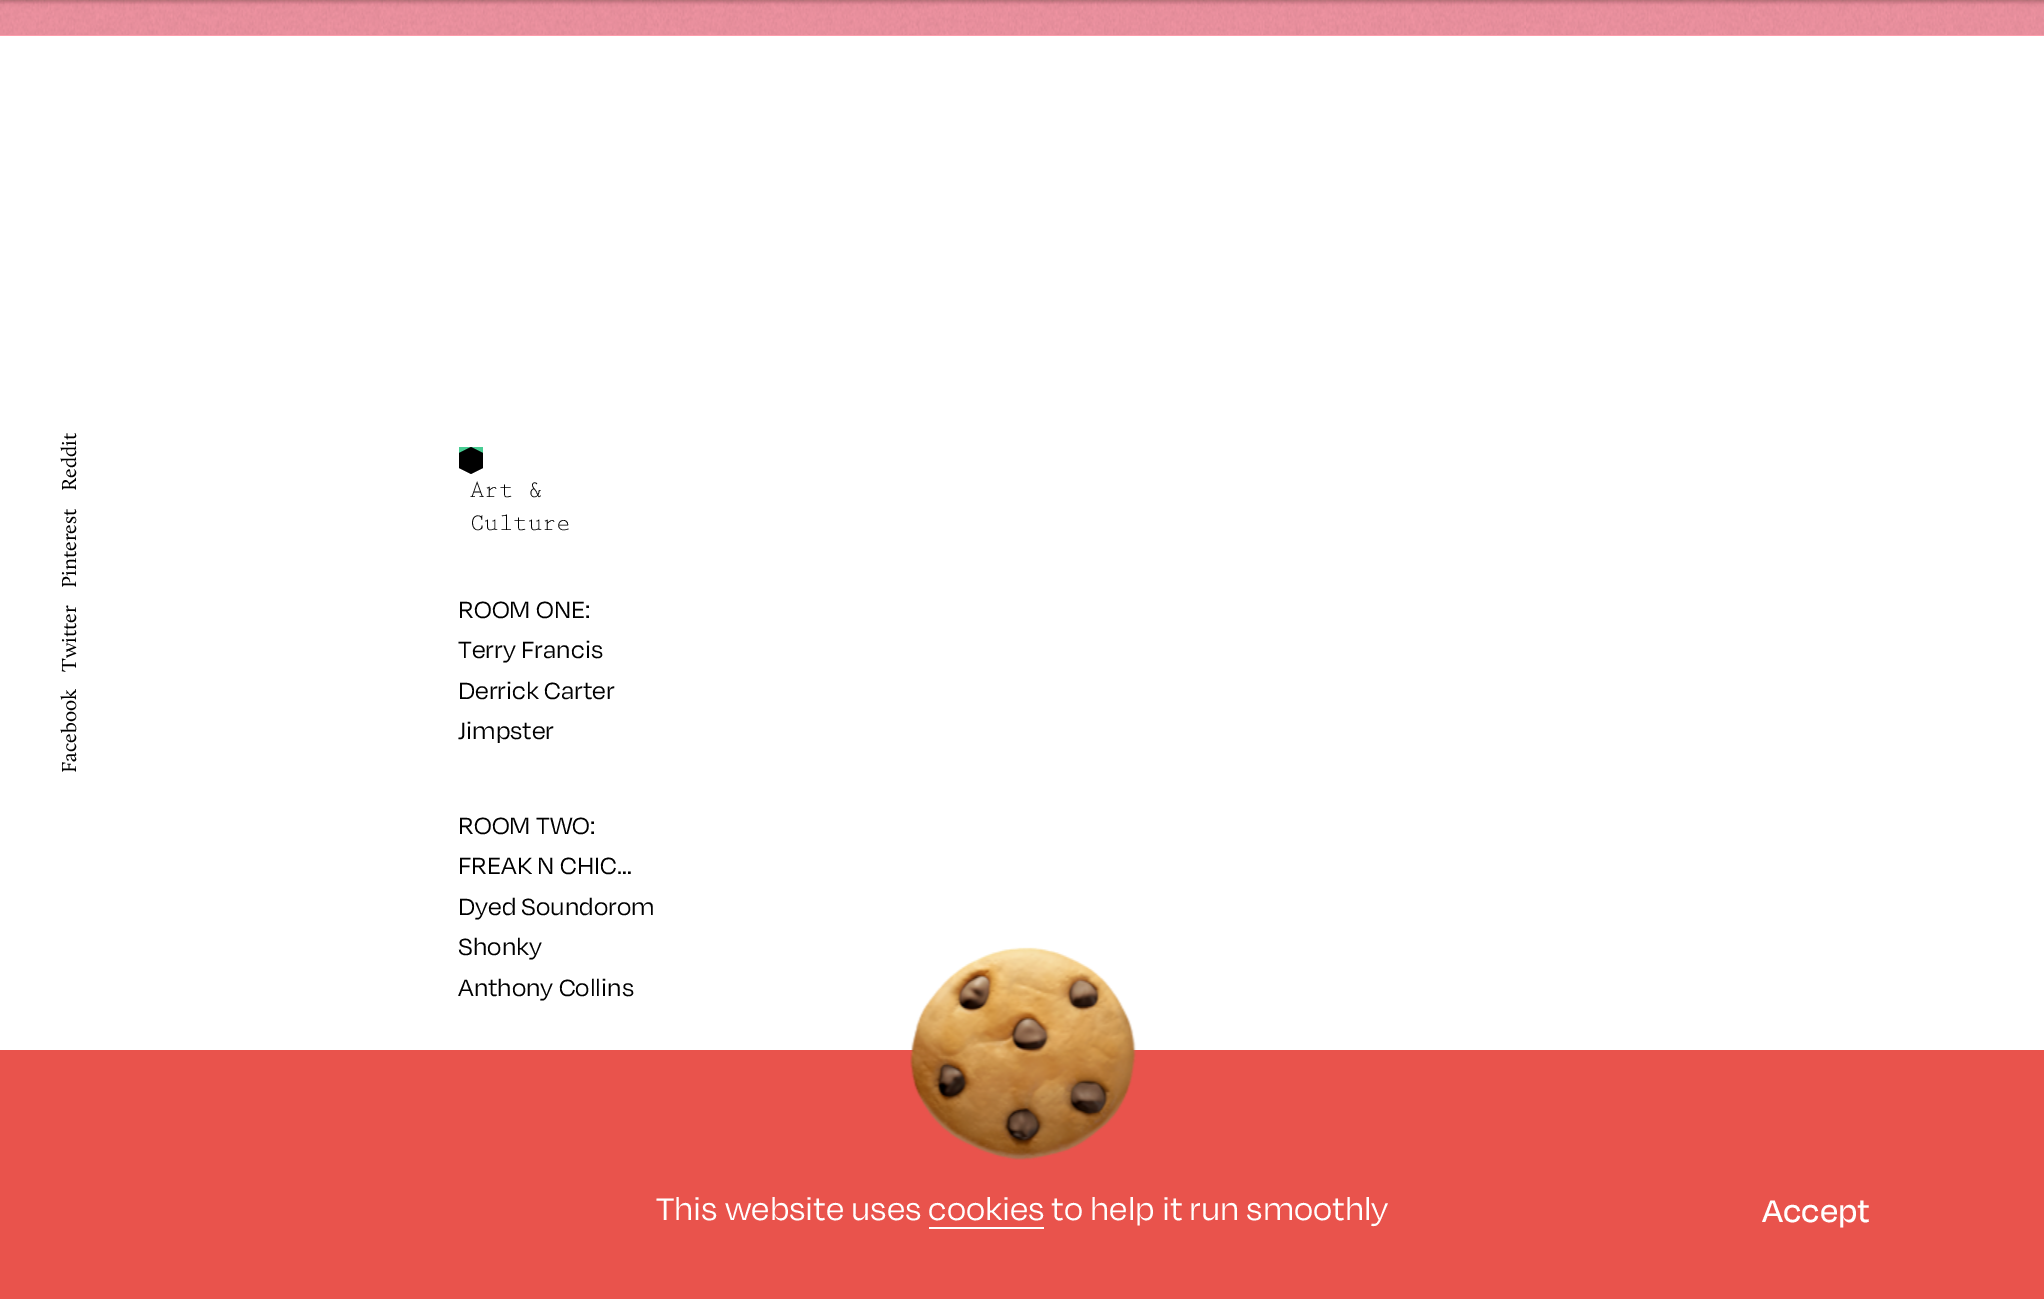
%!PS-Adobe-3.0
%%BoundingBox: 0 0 2044 1299
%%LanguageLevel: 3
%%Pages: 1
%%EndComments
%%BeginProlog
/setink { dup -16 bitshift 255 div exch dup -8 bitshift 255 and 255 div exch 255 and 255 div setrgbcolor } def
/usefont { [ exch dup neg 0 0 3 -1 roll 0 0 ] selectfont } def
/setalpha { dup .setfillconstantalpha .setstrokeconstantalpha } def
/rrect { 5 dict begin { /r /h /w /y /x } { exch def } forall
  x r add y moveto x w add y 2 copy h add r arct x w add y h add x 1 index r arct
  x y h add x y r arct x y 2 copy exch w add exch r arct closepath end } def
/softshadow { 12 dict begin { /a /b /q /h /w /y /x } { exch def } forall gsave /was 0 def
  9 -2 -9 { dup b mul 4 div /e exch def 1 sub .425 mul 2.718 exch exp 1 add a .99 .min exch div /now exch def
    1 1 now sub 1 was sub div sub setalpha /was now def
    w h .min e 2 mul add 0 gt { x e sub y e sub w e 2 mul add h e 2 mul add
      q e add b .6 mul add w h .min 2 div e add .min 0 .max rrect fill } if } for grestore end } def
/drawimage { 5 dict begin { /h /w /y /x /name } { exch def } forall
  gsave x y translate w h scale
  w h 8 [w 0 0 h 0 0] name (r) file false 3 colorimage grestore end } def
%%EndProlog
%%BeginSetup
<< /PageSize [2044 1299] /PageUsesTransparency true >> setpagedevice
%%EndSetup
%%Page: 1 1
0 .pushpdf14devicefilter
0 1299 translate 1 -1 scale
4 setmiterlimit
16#FFFFFF setink
0 0 2044 1299 rectfill
(img1.raw) 0 0 2044 35 drawimage
16#000000 setink
0 -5 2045 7 0 1.5 0.12 softshadow
0 -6 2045 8 0 2 0.12 softshadow
16#FD9CAB setink
0 35 2044 1 rectfill
/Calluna-Regular 21 usefont
16#000000 setink
gsave 76 491 translate -90 rotate 0 0 moveto (Reddit) show grestore
gsave 76 588 translate -90 rotate 0 0 moveto (Pinterest) show grestore
gsave 76 672 translate -90 rotate 0 0 moveto (Twitter) show grestore
gsave 76 773 translate -90 rotate 0 0 moveto (Facebook) show grestore
459 453 24 15 rectfill
16#48CD93 setink
459 447 24 6 rectfill
16#000000 setink
483 453 moveto 459 453 lineto 471 447 lineto closepath 459 468 moveto 483 468 lineto 471 474 lineto closepath fill
/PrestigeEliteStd-Regular 24 usefont
470 497 moveto (Art &) show
470 530 moveto (Culture) show
/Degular-Regular 27 usefont
[
    [(ROOM ONE:) 458 618]
    [(Terry Francis) 458 658]
    [(Derrick Carter) 458 699]
    [(Jimpster) 458 739]
    [(ROOM TWO:) 458 834]
    [(FREAK N CHIC…) 458 874]
    [(Dyed Soundorom) 458 915]
    [(Shonky) 458 955]
    [(Anthony Collins) 458 996]
] { aload pop moveto show } forall
16#E9534C setink
0 1050 2044 249 rectfill
(img2.raw) 910 947 227 213 drawimage
/Degular-Regular 36 usefont
16#FFFFFF setink
656 1220 moveto (This website uses cookies to help it run smoothly) show
929 1227 115 2 rectfill
/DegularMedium-Medium 36 usefont
1762 1222 moveto (Accept) show
.poppdf14devicefilter showpage
%%EOF
